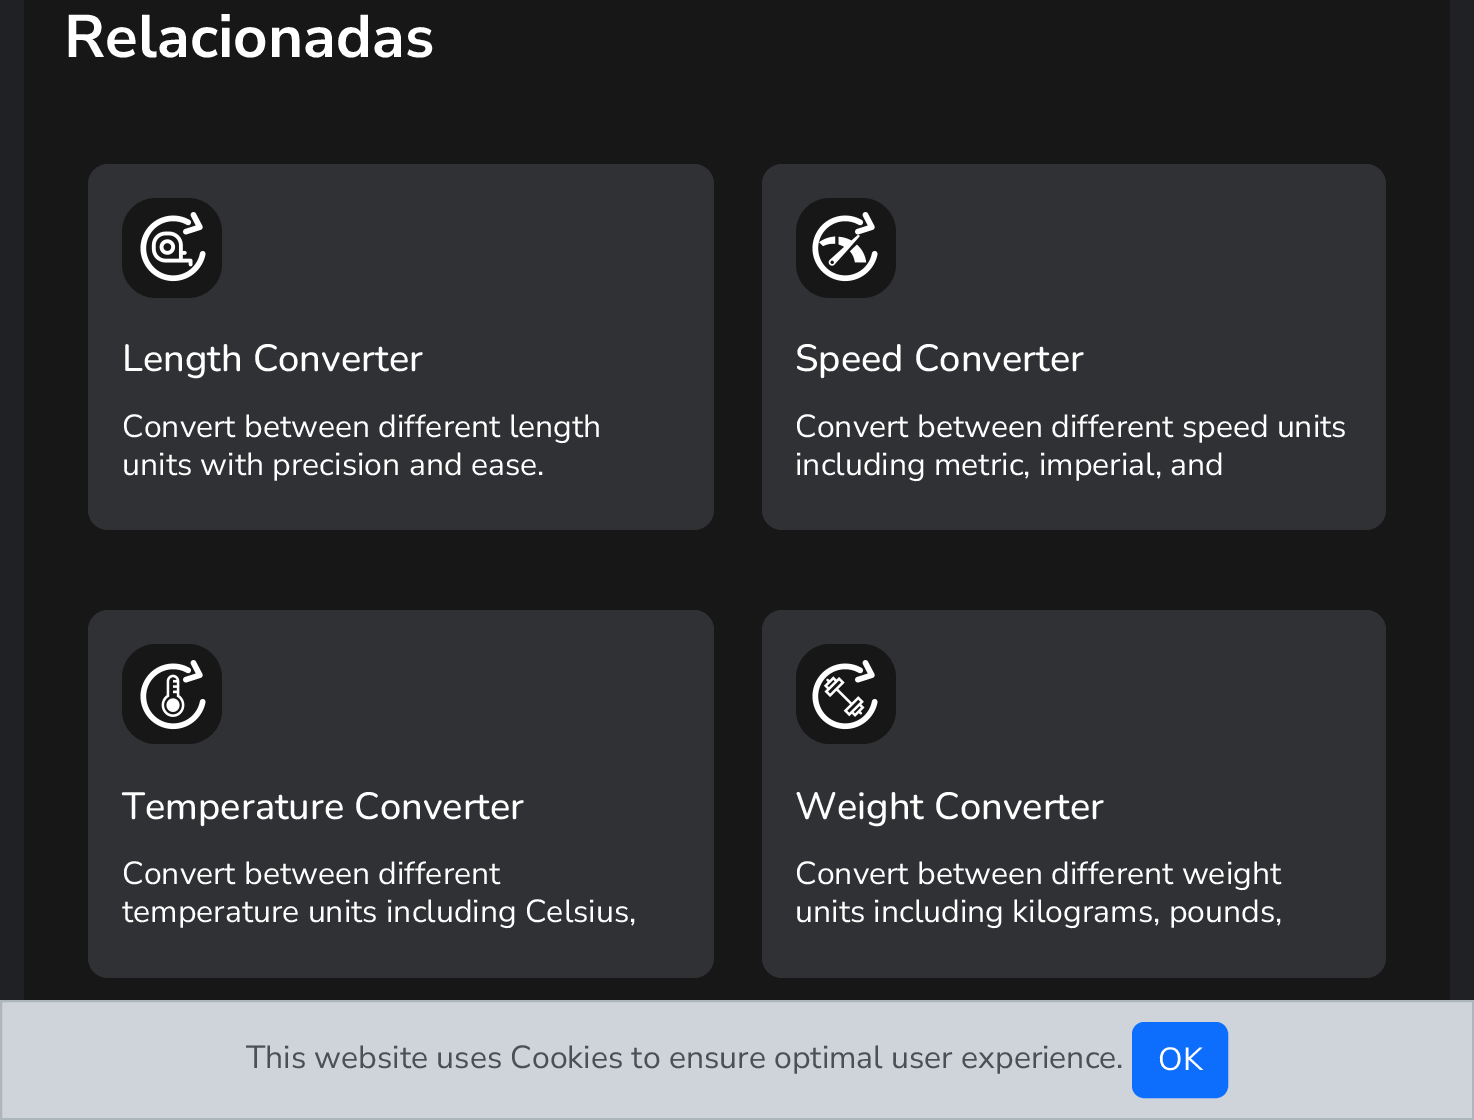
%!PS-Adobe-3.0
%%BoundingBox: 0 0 1474 1120
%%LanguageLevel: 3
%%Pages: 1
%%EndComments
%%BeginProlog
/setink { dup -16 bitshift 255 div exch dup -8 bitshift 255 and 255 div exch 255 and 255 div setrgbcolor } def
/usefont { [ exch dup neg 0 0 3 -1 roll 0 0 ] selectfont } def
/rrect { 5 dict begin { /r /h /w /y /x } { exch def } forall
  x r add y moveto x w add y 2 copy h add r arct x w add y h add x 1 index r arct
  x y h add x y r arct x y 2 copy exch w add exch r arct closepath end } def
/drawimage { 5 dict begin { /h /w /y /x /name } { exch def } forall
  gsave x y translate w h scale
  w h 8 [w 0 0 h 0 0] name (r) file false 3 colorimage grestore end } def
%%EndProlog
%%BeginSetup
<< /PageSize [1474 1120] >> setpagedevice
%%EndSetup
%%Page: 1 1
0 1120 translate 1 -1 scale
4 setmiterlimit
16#202124 setink
0 0 1474 1120 rectfill
16#171717 setink
24 0 1426 1000 rectfill
/NunitoSans-Bold 60 usefont
16#FFFFFF setink
64 57 moveto (Relacionadas) show
16#303134 setink
88 164 626 366 20 rrect fill
16#171717 setink
122 198 100 100 34 rrect fill
(img1.raw) 140 212 66 70 drawimage
/Nunito-Medium 38 usefont
16#FFFFFF setink
122 371 moveto (Length Converter) show
/NunitoSans-Regular 32 usefont
122 437 moveto (Convert between different length) show
122 475 moveto (units with precision and ease.) show
16#303134 setink
762 164 624 366 20 rrect fill
16#171717 setink
796 198 100 100 34 rrect fill
(img2.raw) 812 212 66 70 drawimage
/Nunito-Medium 38 usefont
16#FFFFFF setink
795 371 moveto (Speed Converter) show
/NunitoSans-Regular 32 usefont
795 437 moveto (Convert between different speed units) show
795 475 moveto (including metric, imperial, and) show
16#303134 setink
88 610 626 368 20 rrect fill
16#171717 setink
122 644 100 100 34 rrect fill
(img3.raw) 140 660 66 70 drawimage
/Nunito-Medium 38 usefont
16#FFFFFF setink
122 819 moveto (Temperature Converter) show
/NunitoSans-Regular 32 usefont
122 884 moveto (Convert between different) show
122 922 moveto (temperature units including Celsius,) show
16#303134 setink
762 610 624 368 20 rrect fill
16#171717 setink
796 644 100 100 34 rrect fill
(img4.raw) 812 660 66 70 drawimage
/Nunito-Medium 38 usefont
16#FFFFFF setink
795 819 moveto (Weight Converter) show
/NunitoSans-Regular 32 usefont
795 884 moveto (Convert between different weight) show
795 922 moveto (units including kilograms, pounds,) show
16#CED4DA setink
1 1001 moveto 1473 1001 lineto 1473 1119 lineto 1 1119 lineto closepath gsave fill grestore
16#ADB5BD setink
2 setlinewidth
stroke
16#495057 setink
246 1068 moveto (This website uses Cookies to ensure optimal user experience.) show
16#0D6EFD setink
1133 1023 94 74 11 rrect gsave fill grestore
stroke
16#FFFFFF setink
1158 1070 moveto (OK) show
showpage
%%EOF
